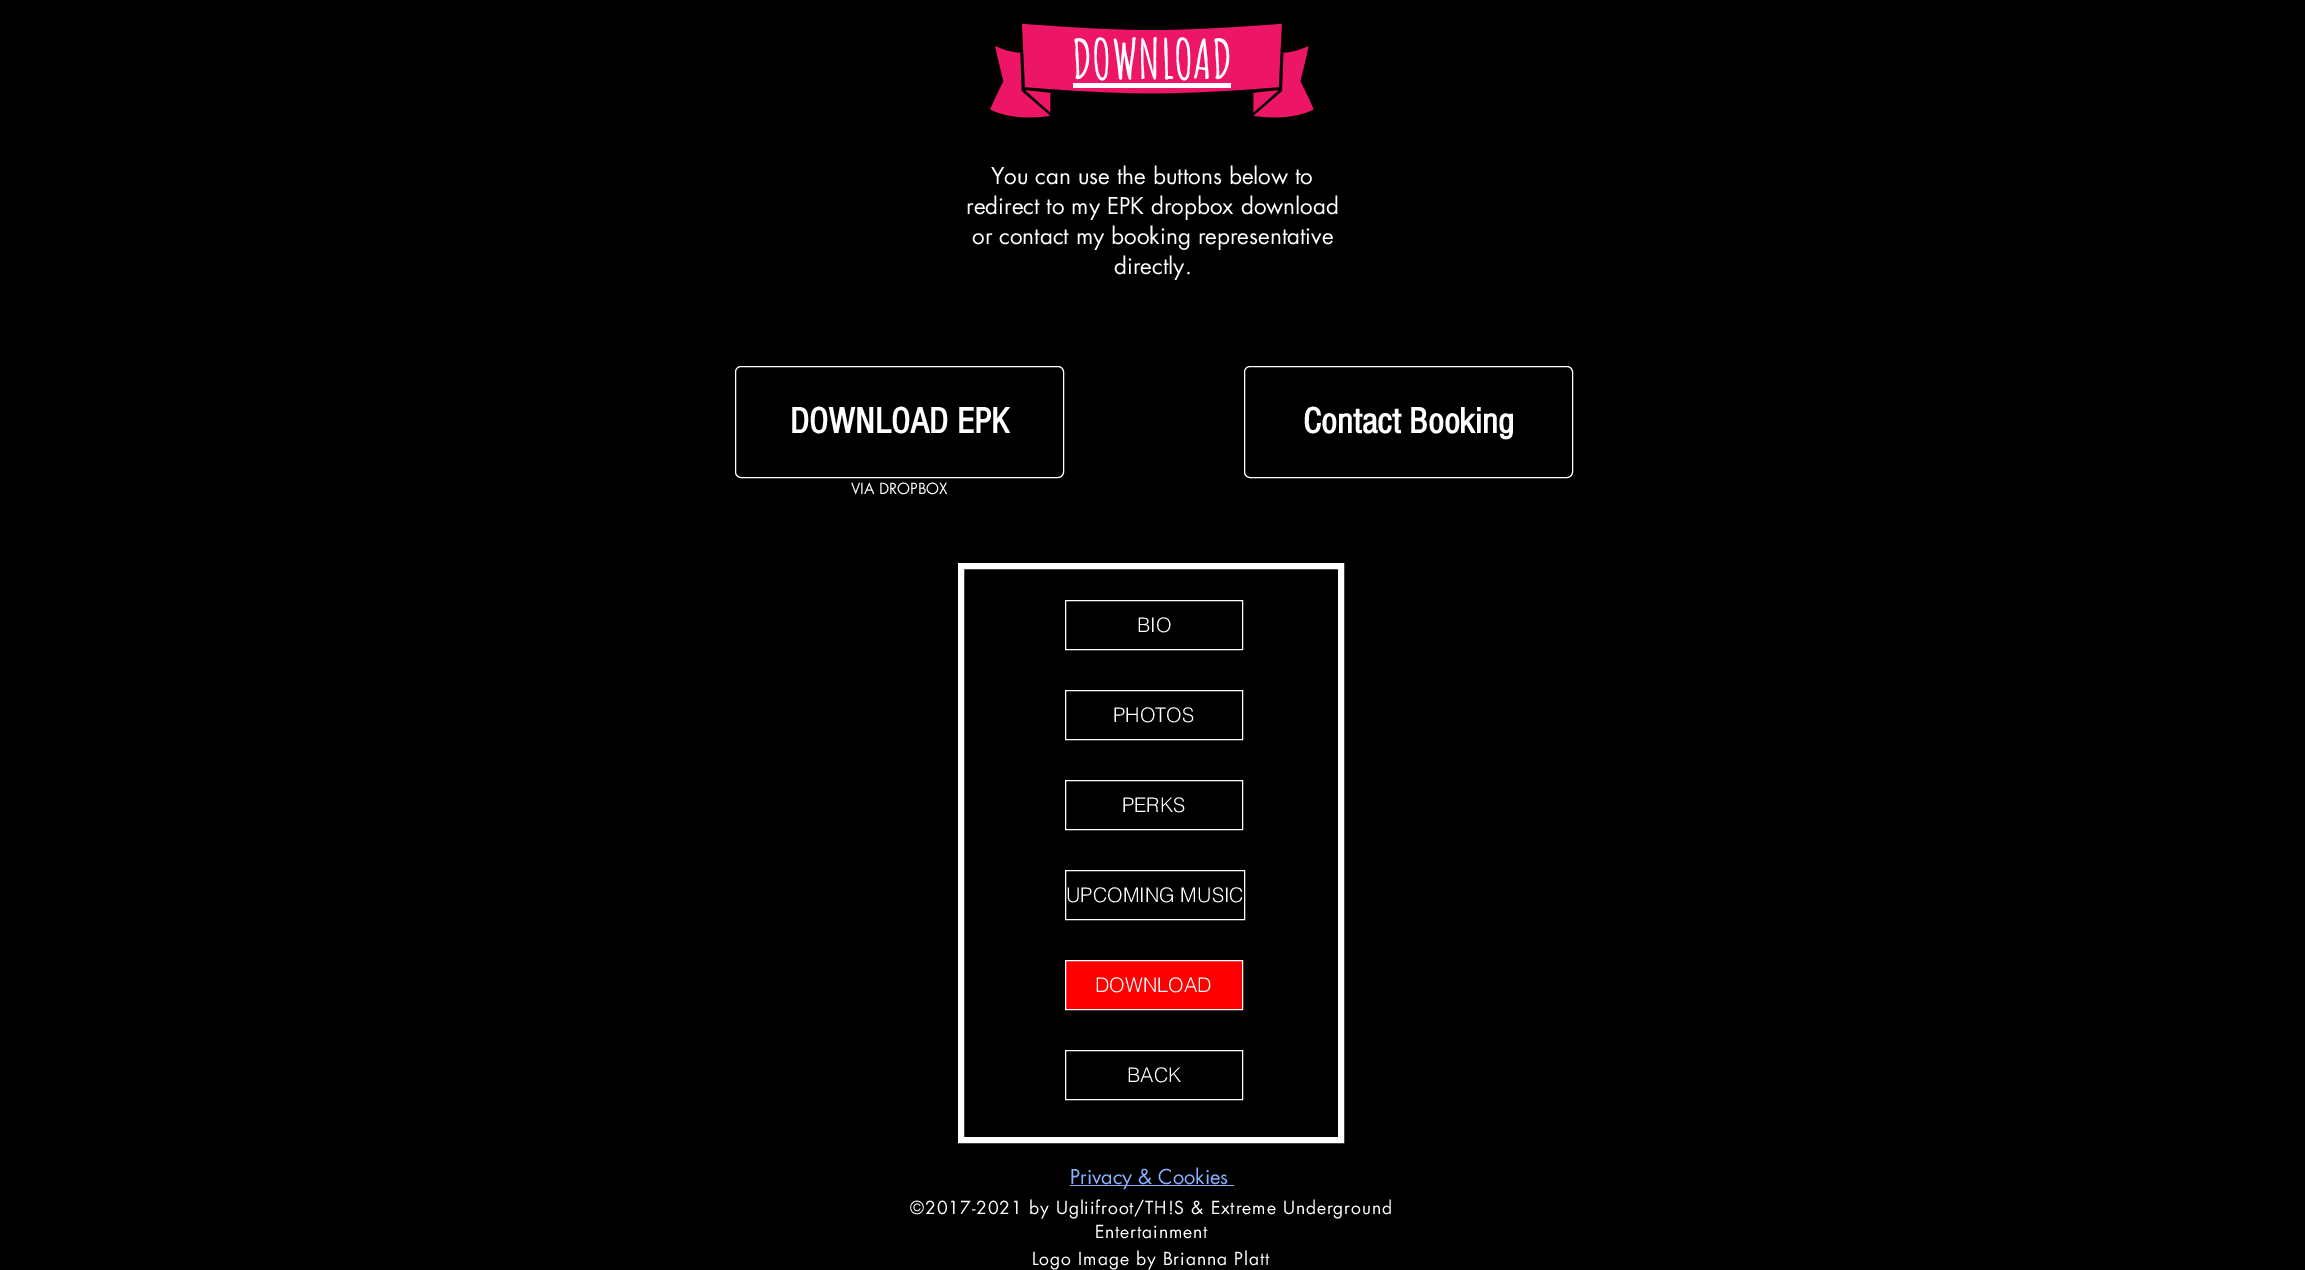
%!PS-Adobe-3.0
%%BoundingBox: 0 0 2305 1270
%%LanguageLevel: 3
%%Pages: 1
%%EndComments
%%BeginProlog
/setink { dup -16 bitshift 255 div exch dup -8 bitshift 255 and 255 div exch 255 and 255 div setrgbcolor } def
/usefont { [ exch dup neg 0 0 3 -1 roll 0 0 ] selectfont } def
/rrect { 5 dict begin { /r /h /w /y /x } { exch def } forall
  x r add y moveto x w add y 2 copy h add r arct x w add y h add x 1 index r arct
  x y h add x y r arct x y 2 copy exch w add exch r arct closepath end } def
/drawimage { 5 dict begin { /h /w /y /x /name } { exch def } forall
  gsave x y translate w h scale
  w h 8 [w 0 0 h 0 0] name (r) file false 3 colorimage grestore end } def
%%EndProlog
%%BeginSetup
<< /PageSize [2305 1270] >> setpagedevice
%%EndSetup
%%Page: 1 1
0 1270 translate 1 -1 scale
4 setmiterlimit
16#000000 setink
0 0 2305 1270 rectfill
(img1.raw) 990 23 324 95 drawimage
/AmaticSC-Bold 54 usefont
16#FFFFFF setink
1072 79 moveto (DOWNLOAD) show
1073 83 158 5 rectfill
/futura-Regular 22.5 usefont
[
    [(You can use the buttons below to) 991 184]
    [(redirect to my EPK dropbox download) 966 214]
    [(or contact my booking representative) 972 244]
    [(directly.) 1114 274]
] { aload pop moveto show } forall
735.5 366.5 328 111 5.5 rrect stroke
/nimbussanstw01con-Bold 37.5 usefont
790 433 moveto (DOWNLOAD EPK) show
1244.5 366.5 328 111 5.5 rrect stroke
1303 433 moveto (Contact Booking) show
/futura-Regular 15 usefont
851 494 moveto (VIA DROPBOX) show
6 setlinewidth
961 566 380 574 rectstroke
1 setlinewidth
1065.5 600.5 177 49 rectstroke
/helvetica-Light 20 usefont
1137 632 moveto (BIO) show
1065.5 690.5 177 49 rectstroke
1113 722 moveto (PHOTOS) show
1065.5 780.5 177 49 rectstroke
1122 812 moveto (PERKS) show
1065.5 870.5 179 49 rectstroke
1066 902 moveto (UPCOMING MUSIC) show
16#FF0000 setink
1065.5 960.5 moveto 1242.5 960.5 lineto 1242.5 1009.5 lineto 1065.5 1009.5 lineto closepath gsave fill grestore
16#FFFFFF setink
stroke
1095 992 moveto (DOWNLOAD) show
1065.5 1050.5 177 49 rectstroke
1127 1082 moveto (BACK) show
16#88B2FF setink
1070 1185 164 1 rectfill
/futura-Regular 20 usefont
1070 1184 moveto (Privacy & Cookies) show
/futura-Regular 17.5 usefont
16#FFFFFF setink
910 1214 moveto 0.88 0 (©2017-2021 by Ugliifroot/TH!S & Extreme Underground) ashow
1095 1238 moveto 0.88 0 (Entertainment) ashow
1032 1265 moveto 0.88 0 (Logo Image by Brianna Platt) ashow
showpage
%%EOF
